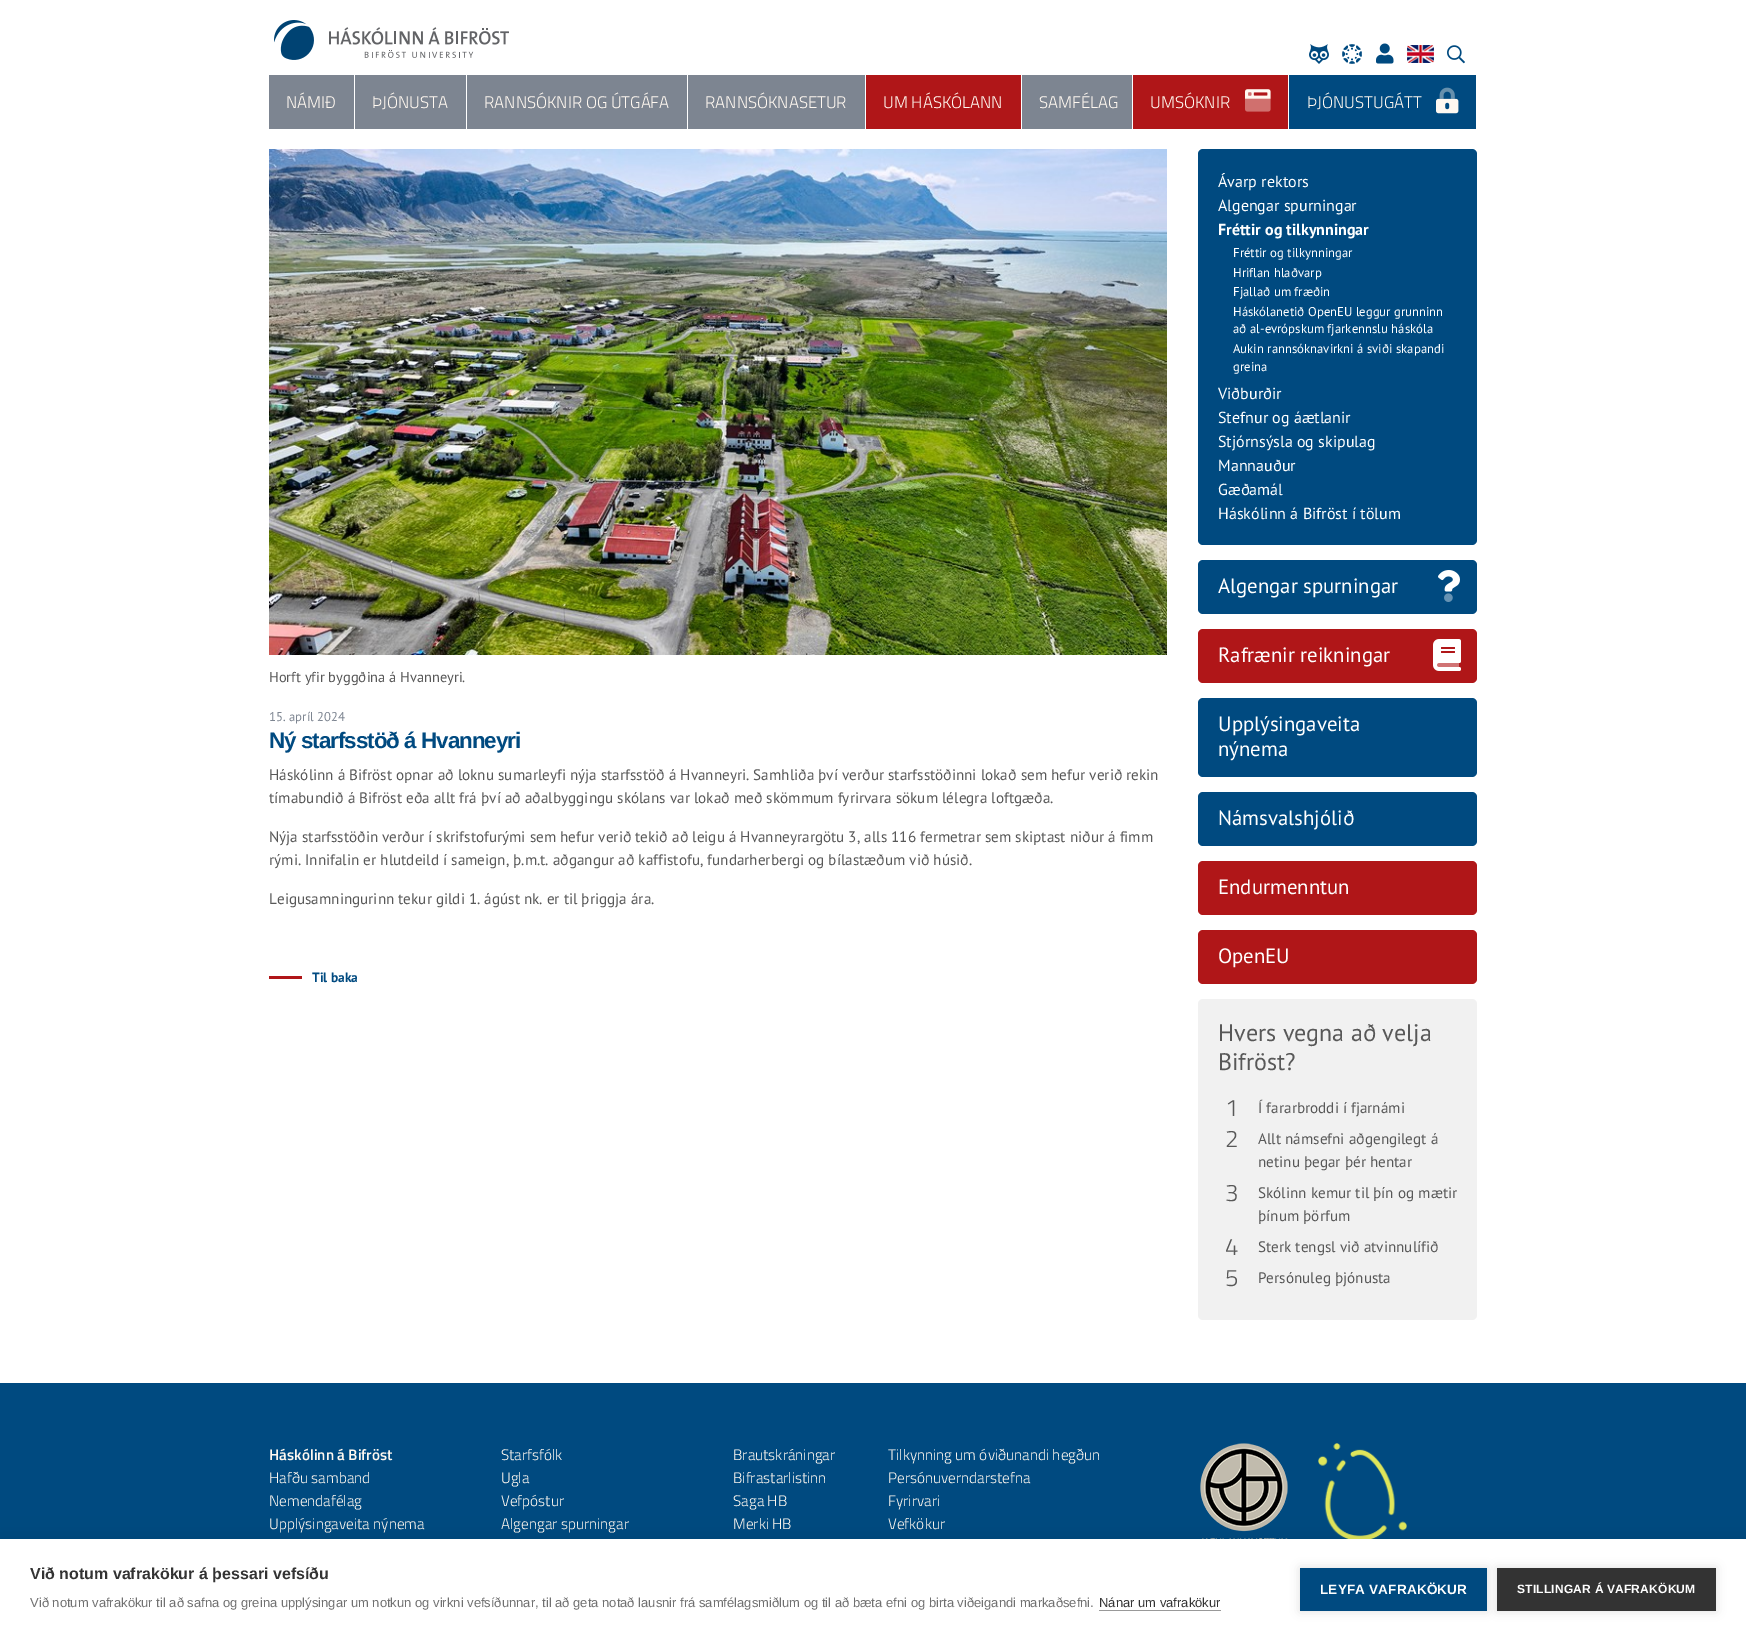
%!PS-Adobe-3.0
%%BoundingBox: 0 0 1746 1639
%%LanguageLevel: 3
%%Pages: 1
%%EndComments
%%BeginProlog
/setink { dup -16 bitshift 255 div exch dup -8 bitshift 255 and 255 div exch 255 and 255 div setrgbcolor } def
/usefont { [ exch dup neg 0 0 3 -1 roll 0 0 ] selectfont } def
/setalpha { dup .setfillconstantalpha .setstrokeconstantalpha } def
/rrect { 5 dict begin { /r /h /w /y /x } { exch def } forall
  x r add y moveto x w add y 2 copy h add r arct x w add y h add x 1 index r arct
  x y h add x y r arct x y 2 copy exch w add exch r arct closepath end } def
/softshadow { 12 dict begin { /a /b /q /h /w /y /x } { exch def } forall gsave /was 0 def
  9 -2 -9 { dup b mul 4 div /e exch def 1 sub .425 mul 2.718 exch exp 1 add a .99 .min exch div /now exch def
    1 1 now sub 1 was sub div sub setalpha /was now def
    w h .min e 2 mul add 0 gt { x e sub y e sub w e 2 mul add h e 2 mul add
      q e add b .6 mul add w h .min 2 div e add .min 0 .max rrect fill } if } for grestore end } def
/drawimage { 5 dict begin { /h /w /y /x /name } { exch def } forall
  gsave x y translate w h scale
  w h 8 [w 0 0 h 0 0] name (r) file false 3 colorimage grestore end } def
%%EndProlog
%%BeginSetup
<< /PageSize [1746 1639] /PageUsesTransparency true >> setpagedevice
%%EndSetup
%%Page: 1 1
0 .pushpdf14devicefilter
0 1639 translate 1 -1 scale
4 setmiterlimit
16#FFFFFF setink
0 0 1746 1639 rectfill
(img1.raw) 274 20 40 40 drawimage
(img2.raw) 329 27 180 31 drawimage
(img3.raw) 1309 44 20 20 drawimage
(img4.raw) 1342 44 20 20 drawimage
(img5.raw) 1376 43 18 21 drawimage
(img6.raw) 1407 45 27 18 drawimage
(img7.raw) 1447 45 18 19 drawimage
16#7D8591 setink
269 75 85 54 rectfill
/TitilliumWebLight-Light 16.75 usefont
16#FFF8F0 setink
286 108 moveto (NÁMIÐ) show
16#7D8591 setink
355 75 111 54 rectfill
16#FFF8F0 setink
372 108 moveto (ÞJÓNUSTA) show
16#7D8591 setink
467 75 220 54 rectfill
16#FFF8F0 setink
484 108 moveto (RANNSÓKNIR OG ÚTGÁFA) show
16#7D8591 setink
688 75 177 54 rectfill
16#FFF8F0 setink
705 108 moveto (RANNSÓKNASETUR) show
16#B01618 setink
866 75 155 54 rectfill
16#FFF8F0 setink
883 108 moveto (UM HÁSKÓLANN) show
16#7D8591 setink
1022 75 110 54 rectfill
16#FFF8F0 setink
1039 108 moveto (SAMFÉLAG) show
16#B01618 setink
1133 75 155 54 rectfill
16#FFF8F0 setink
1150 108 moveto (UMSÓKNIR) show
(img8.raw) 1245 89 26 10 drawimage
(img9.raw) 1245 92 26 20 drawimage
16#004A80 setink
1289 75 187 54 rectfill
16#FFF8F0 setink
1307 108 moveto (ÞJÓNUSTUGÁTT) show
(img11.raw) 1436 98 23 16 drawimage
(img10.raw) 1439 87 16 12 drawimage
(img12.raw) 269 149 898 506 drawimage
/PTSans-Regular 14.4 usefont
16#585858 setink
269 682 moveto (Horft yfir byggðina á Hvanneyri.) show
/PTSans-Regular 12.75 usefont
16#7D8591 setink
269 721 moveto (15. apríl 2024) show
/LiberationSans-Bold 22.4 usefont
16#004A80 setink
269 748 moveto -1 0 (Ný starfsstöð á Hvanneyri) ashow
/PTSans-Regular 15.2 usefont
16#585858 setink
[
    [(Háskólinn á Bifröst opnar að loknu sumarleyfi nýja starfsstöð á Hvanneyri. Samhliða því verður starfsstöðinni lokað sem hefur verið rekin) 269 780]
    [(tímabundið á Bifröst eða allt frá því að aðalbyggingu skólans var lokað með skömmum fyrirvara sökum lélegra loftgæða.) 269 803]
    [(Nýja starfsstöðin verður í skrifstofurými sem hefur verið tekið að leigu á Hvanneyrargötu 3, alls 116 fermetrar sem skiptast niður á fimm) 269 842]
    [(rými. Innifalin er hlutdeild í sameign, þ.m.t. aðgangur að kaffistofu, fundarherbergi og bílastæðum við húsið.) 269 865]
    [(Leigusamningurinn tekur gildi 1. ágúst nk. er til þriggja ára.) 269 904]
] { aload pop moveto show } forall
16#B01618 setink
269 976 33 3 rectfill
/PTSans-Bold 13.5 usefont
16#004A80 setink
312 982 moveto (Til baka) show
1198 149 279 396 5 rrect fill
/PTSans-Regular 16 usefont
16#FFFFFF setink
1218 187 moveto (Ávarp rektors) show
1218 211 moveto (Algengar spurningar) show
/PTSans-Bold 16 usefont
1218 235 moveto (Fréttir og tilkynningar) show
/PTSans-Regular 12.75 usefont
[
    [(Fréttir og tilkynningar) 1233 257]
    [(Hriflan hlaðvarp) 1233 277]
    [(Fjallað um fræðin) 1233 296]
    [(Háskólanetið OpenEU leggur grunninn) 1233 316]
    [(að al-evrópskum fjarkennslu háskóla) 1233 333]
    [(Aukin rannsóknavirkni á sviði skapandi) 1233 353]
    [(greina) 1233 371]
] { aload pop moveto show } forall
/PTSans-Regular 16 usefont
[
    [(Viðburðir) 1218 399]
    [(Stefnur og áætlanir) 1218 423]
    [(Stjórnsýsla og skipulag) 1218 447]
    [(Mannauður) 1218 471]
    [(Gæðamál) 1218 495]
    [(Háskólinn á Bifröst í tölum) 1218 519]
] { aload pop moveto show } forall
16#004A80 setink
1198 560 279 54 5 rrect fill
/PTSans-Regular 20.75 usefont
16#FFFFFF setink
1218 593 moveto (Algengar spurningar) show
(img13.raw) 1438 570 22 22 drawimage
(img14.raw) 1444 593 9 9 drawimage
16#B01618 setink
1198 629 279 54 5 rrect fill
16#FFFFFF setink
1218 662 moveto (Rafrænir reikningar) show
(img15.raw) 1433 639 28 32 drawimage
0.4 setalpha
1437 663 22 4 rectfill
1 setalpha
16#004A80 setink
1198 698 279 79 5 rrect fill
16#FFFFFF setink
1218 731 moveto (Upplýsingaveita) show
1218 756 moveto (nýnema) show
16#004A80 setink
1198 792 279 54 5 rrect fill
16#FFFFFF setink
1218 825 moveto (Námsvalshjólið) show
16#B01618 setink
1198 861 279 54 5 rrect fill
16#FFFFFF setink
1218 894 moveto (Endurmenntun) show
16#B01618 setink
1198 930 279 54 5 rrect fill
16#FFFFFF setink
1218 963 moveto (OpenEU) show
16#F1F1F1 setink
1198 999 279 321 5 rrect fill
/PTSans-Regular 24 usefont
16#585858 setink
1218 1041 moveto (Hvers vegna að velja) show
1218 1070 moveto (Bifröst?) show
/TitilliumWebLight-Light 24 usefont
1225 1116 moveto (1) show
/PTSans-Regular 15.2 usefont
1258 1113 moveto (Í fararbroddi í fjarnámi) show
/TitilliumWebLight-Light 24 usefont
1225 1147 moveto (2) show
/PTSans-Regular 15.2 usefont
1258 1144 moveto (Allt námsefni aðgengilegt á) show
1258 1167 moveto (netinu þegar þér hentar) show
/TitilliumWebLight-Light 24 usefont
1225 1201 moveto (3) show
/PTSans-Regular 15.2 usefont
1258 1198 moveto (Skólinn kemur til þín og mætir) show
1258 1221 moveto (þínum þörfum) show
/TitilliumWebLight-Light 24 usefont
1225 1255 moveto (4) show
/PTSans-Regular 15.2 usefont
1258 1252 moveto (Sterk tengsl við atvinnulífið) show
/TitilliumWebLight-Light 24 usefont
1225 1286 moveto (5) show
/PTSans-Regular 15.2 usefont
1258 1283 moveto (Persónuleg þjónusta) show
16#004A80 setink
0 1383 1746 156 rectfill
/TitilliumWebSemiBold-SemiBold 15.2 usefont
16#FFF8F0 setink
269 1460 moveto (Háskólinn á Bifröst) show
/TitilliumWebLight-Light 15.2 usefont
[
    [(Hafðu samband) 269 1483]
    [(Nemendafélag) 269 1506]
    [(Upplýsingaveita nýnema) 269 1529]
    [(Starfsfólk) 501 1460]
    [(Ugla) 501 1483]
    [(Vefpóstur) 501 1506]
    [(Algengar spurningar) 501 1529]
    [(Brautskráningar) 733 1460]
    [(Bifrastarlistinn) 733 1483]
    [(Saga HB) 733 1506]
    [(Merki HB) 733 1529]
    [(Tilkynning um óviðunandi hegðun) 888 1460]
    [(Persónuverndarstefna) 888 1483]
    [(Fyrirvari) 888 1506]
    [(Vefkökur) 888 1529]
] { aload pop moveto show } forall
(img16.raw) 1200 1443 88 96 drawimage
(img17.raw) 1318 1443 89 96 drawimage
16#000000 setink
0 1539 1746 100 0 10 0.1 softshadow
16#FFFFFF setink
0 1539 1746 100 rectfill
/LiberationSans-Bold 16 usefont
16#333333 setink
30 1579 moveto (Við notum vafrakökur á þessari vefsíðu) show
/LiberationSans-Regular 13 usefont
16#707070 setink
30 1607 moveto (Við notum vafrakökur til að safna og greina upplýsingar um notkun og virkni vefsíðunnar, til að geta notað lausnir frá samfélagsmiðlum og til að bæta efni og birta viðeigandi markaðsefni.) show
16#333333 setink
1099 1607 moveto (Nánar um vafrakökur) show
16#999999 setink
1099 1610 122 1 rectfill
16#000000 setink
1300 1568 187 43 0 5 0.12 softshadow
16#004A80 setink
1300 1568 187 43 rectfill
/LiberationSans-Bold 13.5 usefont
16#FFFFFF setink
1320 1594 moveto 0.2 0 (LEYFA VAFRAKÖKUR) ashow
16#000000 setink
1497 1568 219 43 0 5 0.12 softshadow
16#333333 setink
1497 1568 219 43 rectfill
/LiberationSans-Bold 12 usefont
16#FFFFFF setink
1517 1593 moveto 0.2 0 (STILLINGAR Á VAFRAKÖKUM) ashow
.poppdf14devicefilter showpage
%%EOF
